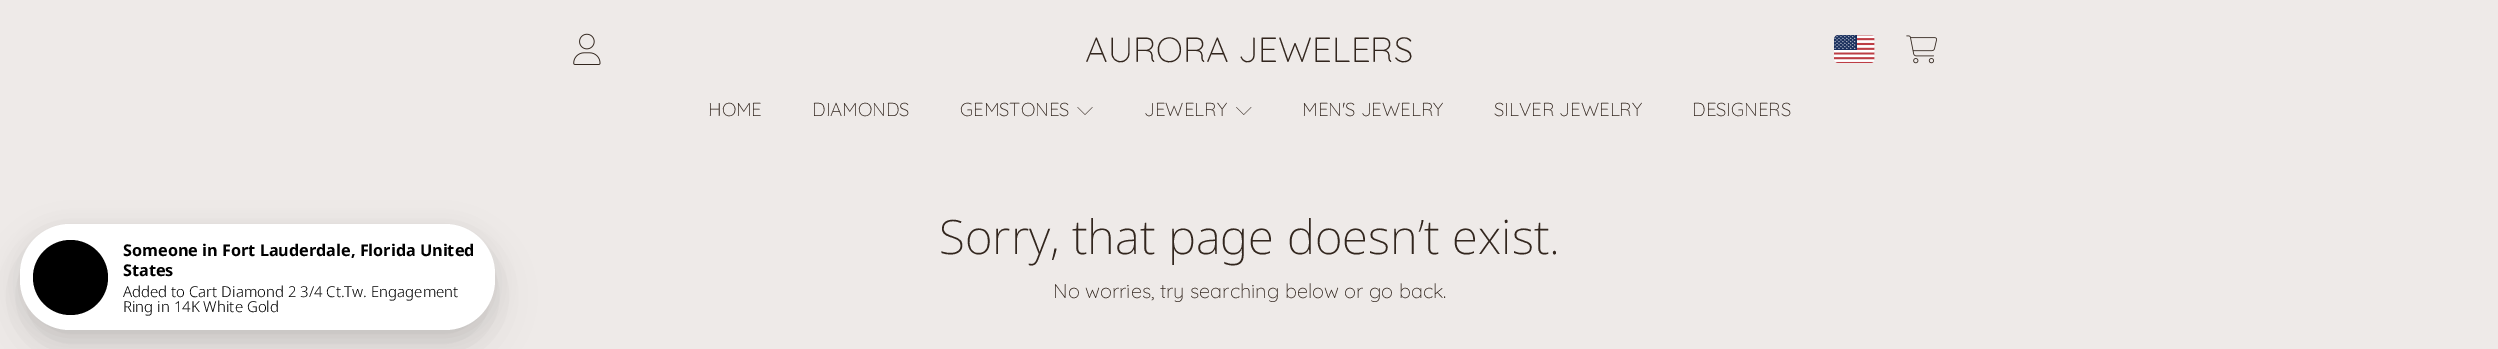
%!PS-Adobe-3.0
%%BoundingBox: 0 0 2498 349
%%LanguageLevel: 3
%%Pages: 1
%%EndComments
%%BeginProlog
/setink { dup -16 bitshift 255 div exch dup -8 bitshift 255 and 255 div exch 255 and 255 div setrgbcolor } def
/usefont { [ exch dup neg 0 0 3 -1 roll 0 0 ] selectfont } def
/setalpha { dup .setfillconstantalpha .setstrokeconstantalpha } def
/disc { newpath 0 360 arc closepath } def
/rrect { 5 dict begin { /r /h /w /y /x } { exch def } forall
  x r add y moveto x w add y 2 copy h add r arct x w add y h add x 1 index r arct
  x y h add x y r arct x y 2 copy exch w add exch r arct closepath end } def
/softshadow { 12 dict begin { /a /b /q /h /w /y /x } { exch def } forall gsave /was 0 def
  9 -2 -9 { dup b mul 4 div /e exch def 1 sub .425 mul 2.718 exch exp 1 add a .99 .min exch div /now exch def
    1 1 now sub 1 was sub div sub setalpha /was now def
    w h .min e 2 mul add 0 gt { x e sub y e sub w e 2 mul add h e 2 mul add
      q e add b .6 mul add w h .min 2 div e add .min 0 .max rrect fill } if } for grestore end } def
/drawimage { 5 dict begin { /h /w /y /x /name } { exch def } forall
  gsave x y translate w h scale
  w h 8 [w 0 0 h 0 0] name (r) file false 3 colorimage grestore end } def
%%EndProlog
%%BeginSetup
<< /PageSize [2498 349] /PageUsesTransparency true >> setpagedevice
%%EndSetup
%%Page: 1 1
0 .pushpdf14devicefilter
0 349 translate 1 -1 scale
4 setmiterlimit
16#EEEAE8 setink
0 0 2498 349 rectfill
(img1.raw) 573 33 28 32 drawimage
/Quicksand-Light 35 usefont
16#32261E setink
1085 62 moveto (AURORA JEWELERS) show
(img2.raw) 1834 35 41 28 drawimage
(img3.raw) 1906 35 31 29 drawimage
/Quicksand-Light 18.75 usefont
[
    [(HOME) 708 116]
    [(DIAMONDS) 812 116]
    [(GEMSTONES) 960 116]
] { aload pop moveto show } forall
(img4.raw) 1077 107 16 8 drawimage
1144 116 moveto (JEWELRY) show
(img5.raw) 1236 107 16 8 drawimage
[
    [(MEN'S JEWELRY) 1302 116]
    [(SILVER JEWELRY) 1494 116]
    [(DESIGNERS) 1692 116]
] { aload pop moveto show } forall
16#000000 setink
20 230 475 106 50 9.5 0.08 softshadow
20 243 475 106 50 19 0.11 softshadow
16#FFFFFF setink
20 224 475 106 50 rrect fill
16#000000 setink
70.5 277.5 37.5 disc fill
/NotoSans-Bold 16.25 usefont
123 256 moveto (Someone in Fort Lauderdale, Florida United) show
123 276 moveto (States) show
/NotoSans-Light 15 usefont
123 297 moveto (Added to Cart Diamond 2 3/4 Ct.Tw. Engagement) show
123 312 moveto (Ring in 14K White Gold) show
/NotoSans-ExtraLight 47.5 usefont
16#32261E setink
939 254 moveto (Sorry, that page doesn’t exist.) show
/Quicksand-Light 20 usefont
1053 298 moveto (No worries, try searching below or go back.) show
.poppdf14devicefilter showpage
%%EOF
